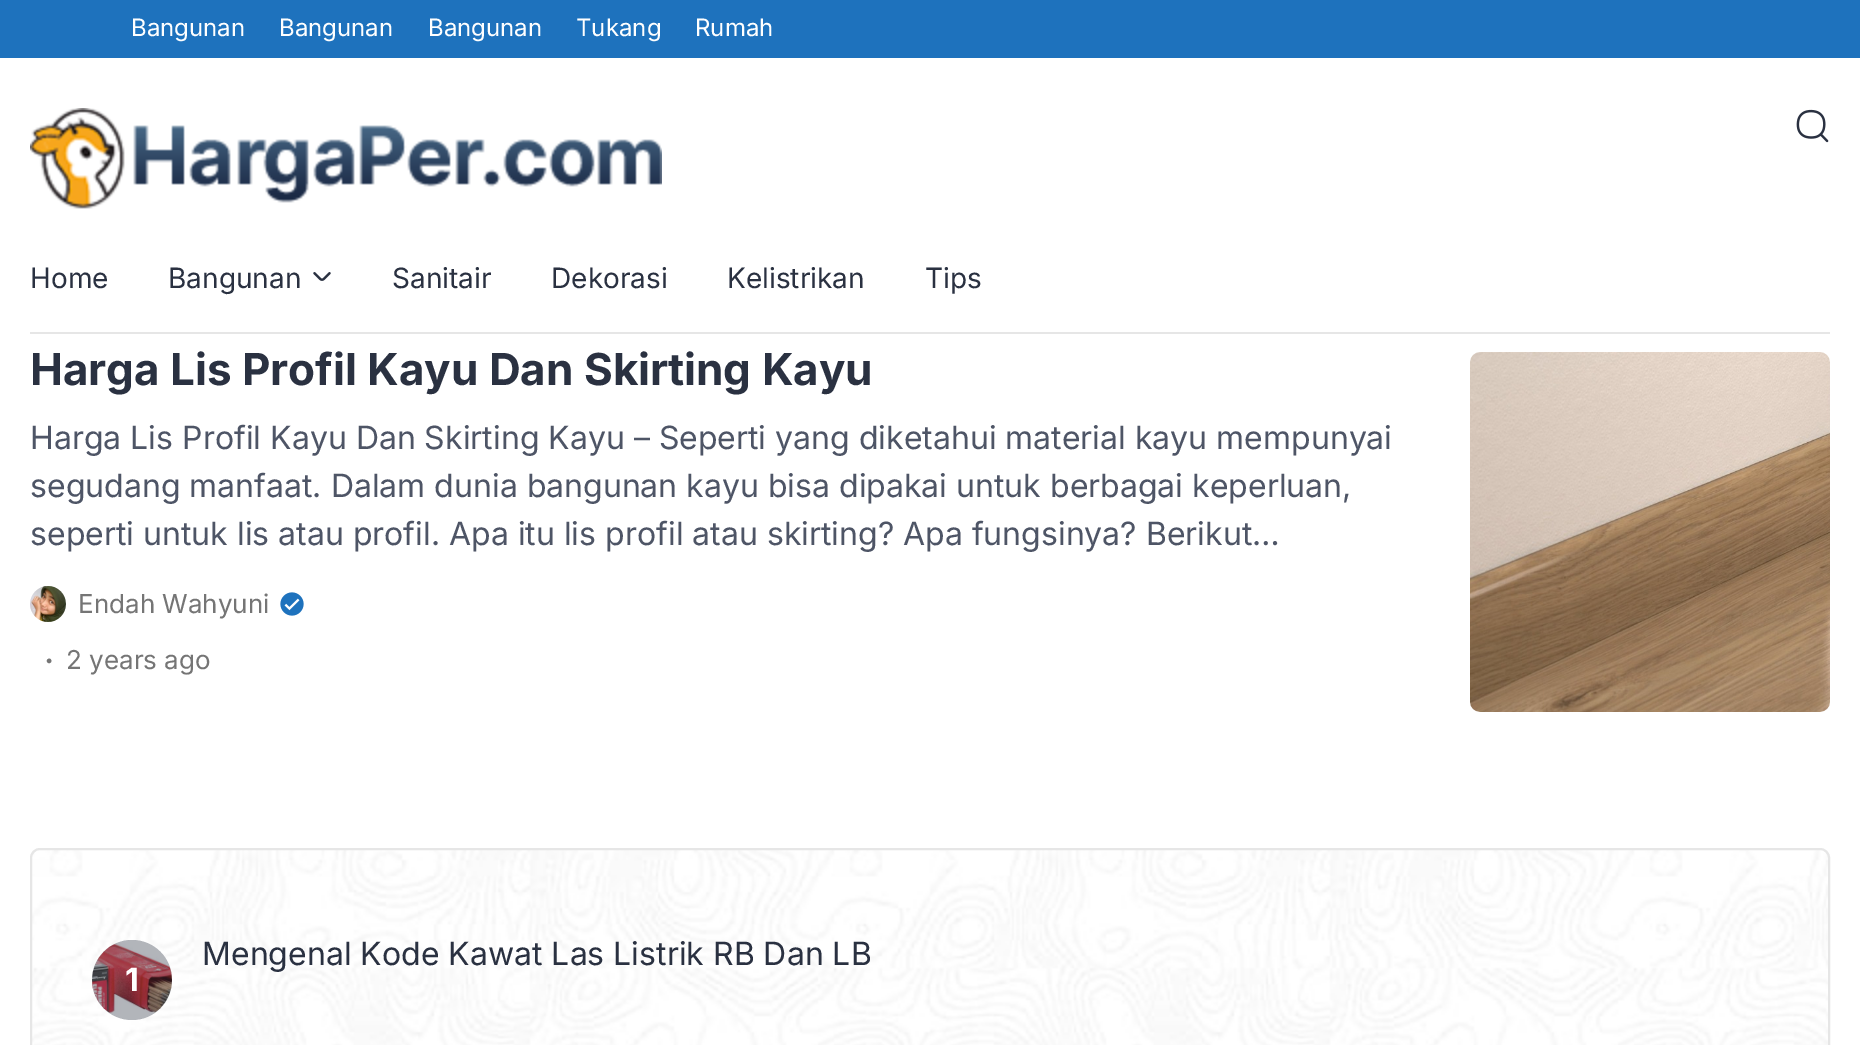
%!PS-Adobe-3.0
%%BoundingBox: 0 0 1860 1045
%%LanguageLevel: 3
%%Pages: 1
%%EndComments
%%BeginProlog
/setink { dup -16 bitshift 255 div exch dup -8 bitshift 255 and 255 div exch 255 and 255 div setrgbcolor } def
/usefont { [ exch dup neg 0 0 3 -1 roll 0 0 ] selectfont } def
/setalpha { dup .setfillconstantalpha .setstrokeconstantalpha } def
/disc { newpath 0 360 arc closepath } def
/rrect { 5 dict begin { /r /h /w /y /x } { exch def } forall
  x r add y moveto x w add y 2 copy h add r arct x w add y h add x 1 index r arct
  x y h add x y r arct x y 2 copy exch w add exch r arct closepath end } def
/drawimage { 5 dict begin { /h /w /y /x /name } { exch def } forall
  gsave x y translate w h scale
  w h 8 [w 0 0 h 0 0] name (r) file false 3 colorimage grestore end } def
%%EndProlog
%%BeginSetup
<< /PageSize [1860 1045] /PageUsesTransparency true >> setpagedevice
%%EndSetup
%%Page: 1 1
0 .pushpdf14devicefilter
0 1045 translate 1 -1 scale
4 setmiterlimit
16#FFFFFF setink
0 0 1860 1045 rectfill
16#1E72BD setink
0 0 1860 58 rectfill
/Inter-Regular 24 usefont
16#FFFFFF setink
[
    [(Bangunan) 131 36]
    [(Bangunan) 279 36]
    [(Bangunan) 428 36]
    [(Tukang) 576 36]
    [(Rumah) 695 36]
] { aload pop moveto show } forall
(img1.raw) 30 108 632 101 drawimage
(img2.raw) 1796 109 33 34 drawimage
/Inter-Regular 28 usefont
16#2A3141 setink
30 288 moveto (Home) show
168 288 moveto (Bangunan) show
(img3.raw) 313 272 18 9 drawimage
[
    [(Sanitair) 392 288]
    [(Dekorasi) 551 288]
    [(Kelistrikan) 727 288]
    [(Tips) 925 288]
] { aload pop moveto show } forall
16#E6E6E6 setink
30 332 1800 2 rectfill
/Inter-Bold 44 usefont
16#2A3141 setink
30 385 moveto (Harga Lis Profil Kayu Dan Skirting Kayu) show
/Inter-Regular 32 usefont
16#4E5566 setink
[
    [(Harga Lis Profil Kayu Dan Skirting Kayu – Seperti yang diketahui material kayu mempunyai) 30 449]
    [(segudang manfaat. Dalam dunia bangunan kayu bisa dipakai untuk berbagai keperluan,) 30 497]
    [(seperti untuk lis atau profil. Apa itu lis profil atau skirting? Apa fungsinya? Berikut…) 30 545]
] { aload pop moveto show } forall
(img4.raw) 30 586 36 36 drawimage
/Inter-Regular 26 usefont
16#757575 setink
78 613 moveto (Endah Wahyuni) show
(img5.raw) 280 592 24 24 drawimage
/Inter-Regular 36 usefont
44 663 moveto (.) show
/Inter-Regular 26 usefont
66 669 moveto (2 years ago) show
(img6.raw) 1470 352 360 360 drawimage
(img7.raw) 30 848 1800 197 drawimage
16#E6E6E6 setink
2 setlinewidth
31 849 1798 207 9 rrect stroke
/Inter-Regular 32 usefont
16#2A3141 setink
202 965 moveto (Mengenal Kode Kawat Las Listrik RB Dan LB) show
(img8.raw) 92 941 80 77 drawimage
0.36 setalpha
132 980 40 disc fill
/Inter-Bold 32 usefont
1 setalpha
16#FFFFFF setink
125 991 moveto (1) show
.poppdf14devicefilter showpage
%%EOF
